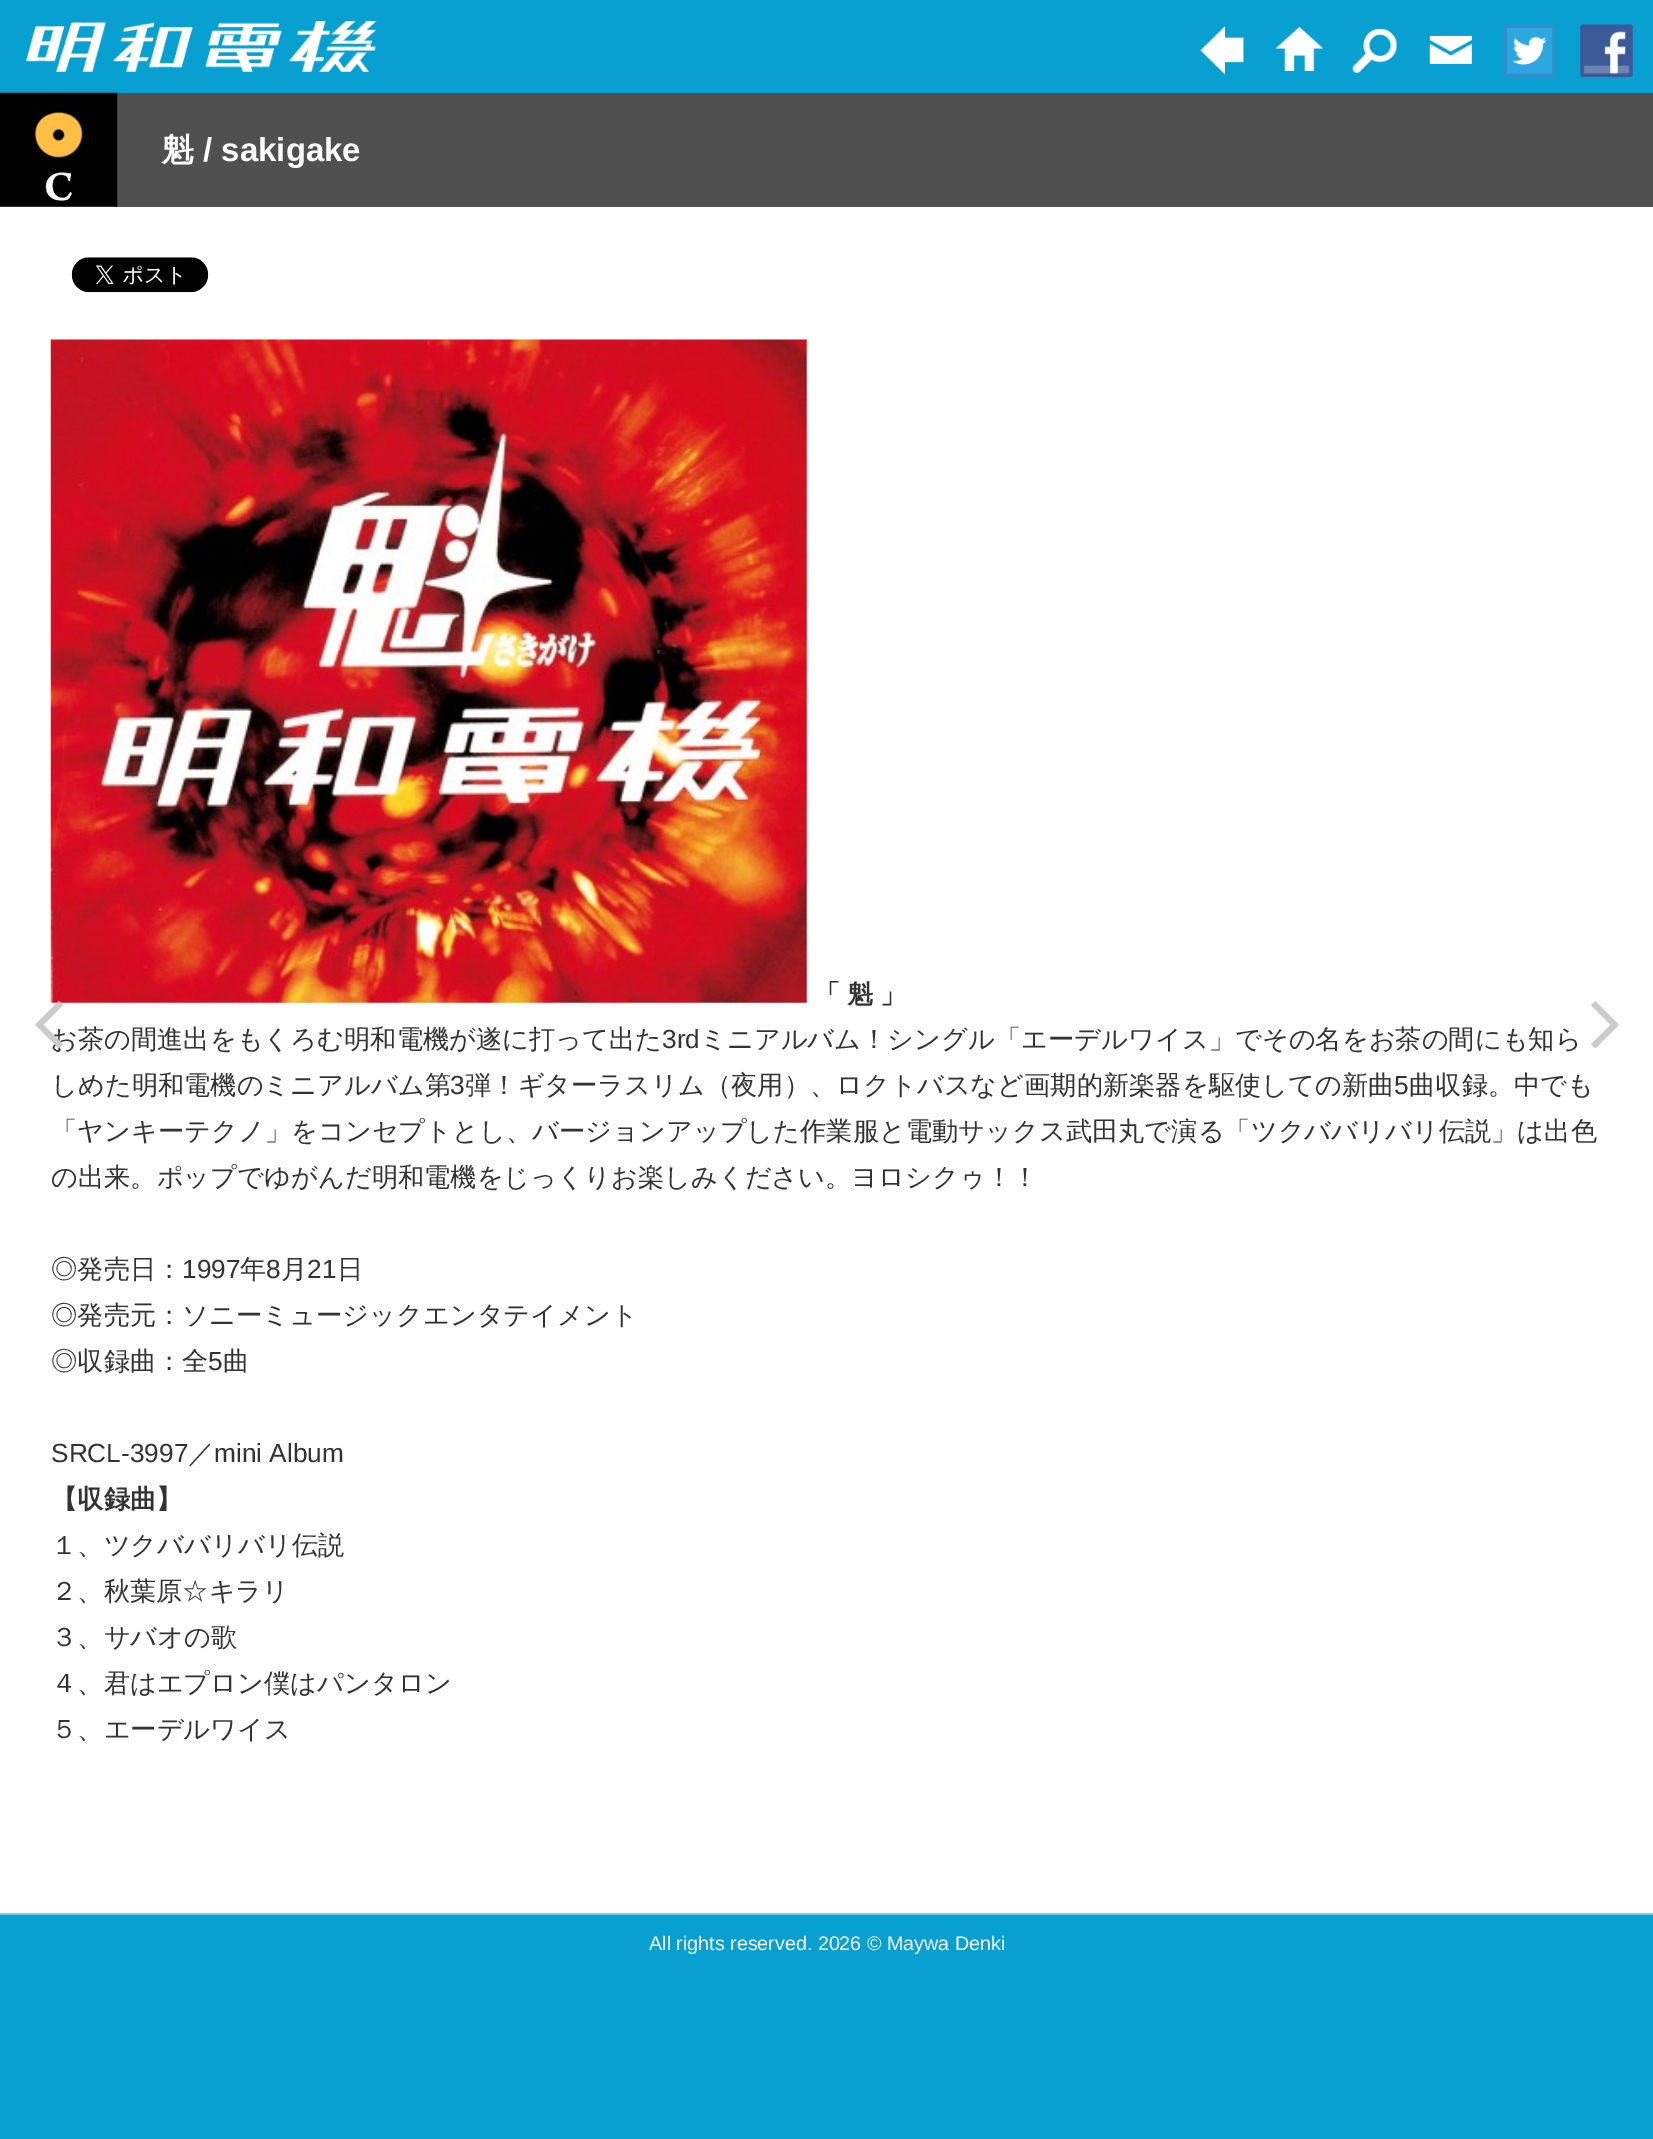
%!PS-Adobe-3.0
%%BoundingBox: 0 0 1653 2139
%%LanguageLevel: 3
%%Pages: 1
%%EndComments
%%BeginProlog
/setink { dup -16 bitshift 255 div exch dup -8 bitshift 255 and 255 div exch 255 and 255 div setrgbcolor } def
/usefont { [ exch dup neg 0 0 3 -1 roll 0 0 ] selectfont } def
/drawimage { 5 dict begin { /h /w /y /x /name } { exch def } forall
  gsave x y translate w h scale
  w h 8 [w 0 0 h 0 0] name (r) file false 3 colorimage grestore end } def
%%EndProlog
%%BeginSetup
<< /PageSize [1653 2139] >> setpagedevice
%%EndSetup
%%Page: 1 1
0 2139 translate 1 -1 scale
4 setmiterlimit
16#089FD1 setink
0 0 1653 2139 rectfill
(img1.raw) 26 21 351 51 drawimage
(img2.raw) 1200 26 44 49 drawimage
(img3.raw) 1275 27 48 44 drawimage
(img4.raw) 1352 28 45 45 drawimage
(img5.raw) 1429 35 43 29 drawimage
(img6.raw) 1503 24 53 53 drawimage
(img7.raw) 1580 24 53 53 drawimage
16#505050 setink
0 93 1653 114 rectfill
(img8.raw) 0 92 118 115 drawimage
/WenQuanYiZenHei-Bold 33 usefont
16#FFFFFF setink
161 161 moveto (魁) show
/LiberationSans-Bold 33 usefont
203 161 moveto (/ sakigake) show
0 207 1653 1706 rectfill
(img9.raw) 71 257 138 36 drawimage
(img10.raw) 50 339 757 664 drawimage
/WenQuanYiZenHei-Bold 26.25 usefont
16#333333 setink
814 1003 moveto (「) show
847 1003 moveto -1 0 32 (魁 」) widthshow
/WenQuanYiZenHei-Medium 26.25 usefont
51 1048 moveto (お茶の間進出をもくろむ明和電機が遂に打って出た) show
/LiberationSans-Regular 26.25 usefont
662 1048 moveto (3rd) show
/WenQuanYiZenHei-Medium 26.25 usefont
700 1048 moveto (ミニアルバム！シングル「エーデルワイス」でその名をお茶の間にも知ら) show
51 1094 moveto (しめた明和電機のミニアルバム第) show
/LiberationSans-Regular 26.25 usefont
450 1094 moveto (3) show
/WenQuanYiZenHei-Medium 26.25 usefont
465 1094 moveto (弾！ギターラスリム（夜用）、ロクトバスなど画期的新楽器を駆使しての新曲) show
/LiberationSans-Regular 26.25 usefont
1394 1094 moveto (5) show
/WenQuanYiZenHei-Medium 26.25 usefont
[
    [(曲収録。中でも) 1409 1094]
    [(「ヤンキーテクノ」をコンセプトとし、バージョンアップした作業服と電動サックス武田丸で演る「ツクババリバリ伝説」は出色) 51 1140]
    [(の出来。ポップでゆがんだ明和電機をじっくりお楽しみください。ヨロシクゥ！！) 51 1186]
    [(◎発売日：) 51 1278]
] { aload pop moveto show } forall
/LiberationSans-Regular 26.25 usefont
182 1278 moveto (1997) show
/WenQuanYiZenHei-Medium 26.25 usefont
240 1278 moveto (年) show
/LiberationSans-Regular 26.25 usefont
266 1278 moveto (8) show
/WenQuanYiZenHei-Medium 26.25 usefont
281 1278 moveto (月) show
/LiberationSans-Regular 26.25 usefont
307 1278 moveto (21) show
/WenQuanYiZenHei-Medium 26.25 usefont
[
    [(日) 337 1278]
    [(◎発売元：ソニーミュージックエンタテイメント) 51 1324]
    [(◎収録曲：全) 51 1370]
] { aload pop moveto show } forall
/LiberationSans-Regular 26.25 usefont
208 1370 moveto (5) show
/WenQuanYiZenHei-Medium 26.25 usefont
223 1370 moveto (曲) show
/LiberationSans-Regular 26.25 usefont
51 1462 moveto (SRCL-3997) show
/WenQuanYiZenHei-Medium 26.25 usefont
188 1462 moveto (／) show
/LiberationSans-Regular 26.25 usefont
214 1462 moveto (mini Album) show
/WenQuanYiZenHei-Bold 26.25 usefont
51 1508 moveto (【収録曲】) show
/WenQuanYiZenHei-Medium 26.25 usefont
[
    [(１、ツクババリバリ伝説) 51 1554]
    [(２、秋葉原☆キラリ) 51 1600]
    [(３、サバオの歌) 51 1646]
    [(４、君はエプロン僕はパンタロン) 51 1692]
    [(５、エーデルワイス) 51 1738]
] { aload pop moveto show } forall
(img11.raw) 35 1001 28 48 drawimage
(img12.raw) 1591 1001 28 47 drawimage
16#75D3EF setink
0 1913 1653 2 rectfill
/LiberationSans-Regular 19.7 usefont
16#F8F8F8 setink
649 1950 moveto (All rights reserved. 2026 © Maywa Denki) show
showpage
%%EOF
